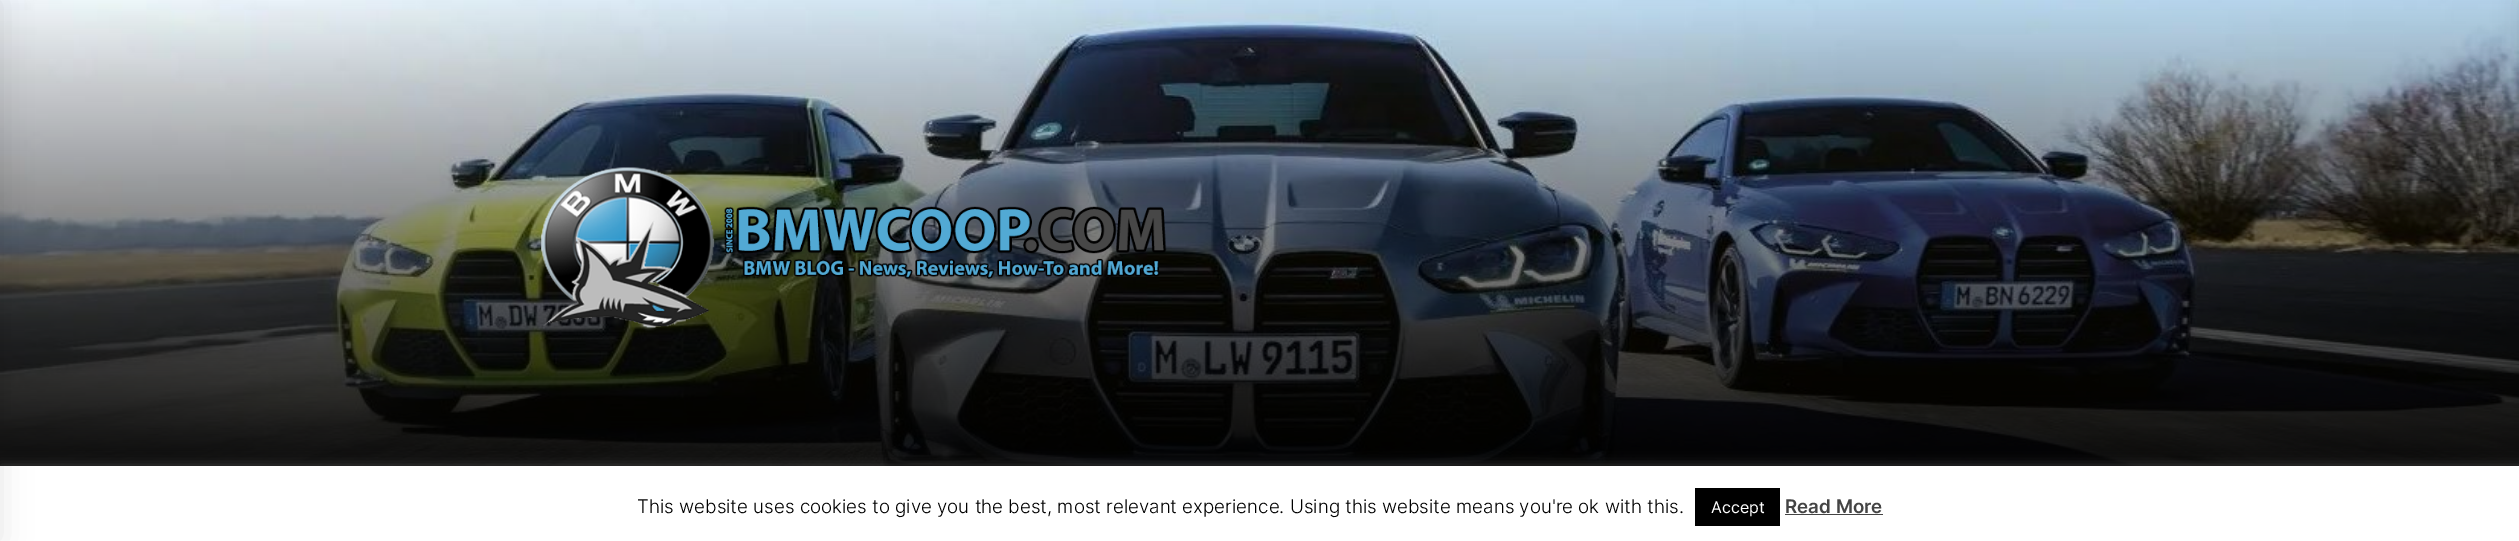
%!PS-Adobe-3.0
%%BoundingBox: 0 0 2519 541
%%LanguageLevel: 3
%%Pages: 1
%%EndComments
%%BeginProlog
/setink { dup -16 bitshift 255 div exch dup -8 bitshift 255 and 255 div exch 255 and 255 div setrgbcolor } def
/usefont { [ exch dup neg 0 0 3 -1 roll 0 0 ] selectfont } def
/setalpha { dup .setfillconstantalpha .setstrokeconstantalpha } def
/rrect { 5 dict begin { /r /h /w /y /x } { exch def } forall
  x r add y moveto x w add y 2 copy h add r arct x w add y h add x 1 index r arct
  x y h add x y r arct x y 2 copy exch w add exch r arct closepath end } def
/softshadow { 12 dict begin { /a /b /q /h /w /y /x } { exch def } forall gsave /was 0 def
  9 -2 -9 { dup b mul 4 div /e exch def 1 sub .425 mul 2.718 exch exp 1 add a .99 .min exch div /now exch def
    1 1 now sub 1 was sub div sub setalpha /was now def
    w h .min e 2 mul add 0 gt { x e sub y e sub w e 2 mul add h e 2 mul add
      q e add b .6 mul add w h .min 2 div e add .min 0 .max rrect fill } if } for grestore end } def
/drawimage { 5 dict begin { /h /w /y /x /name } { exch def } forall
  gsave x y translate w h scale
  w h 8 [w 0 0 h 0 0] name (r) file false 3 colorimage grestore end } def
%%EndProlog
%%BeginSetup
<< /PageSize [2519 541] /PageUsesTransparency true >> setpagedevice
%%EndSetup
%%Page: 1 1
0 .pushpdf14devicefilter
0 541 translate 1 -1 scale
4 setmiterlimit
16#FFFFFF setink
0 0 2519 541 rectfill
(img1.raw) 0 0 2519 466 drawimage
(img2.raw) 541 167 626 164 drawimage
16#000000 setink
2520 0 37 541 0 12.5 0.1 softshadow
16#ACABAB setink
0 465 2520 75 0 6 0.3 softshadow
16#FFFFFF setink
0 466 2519 75 rectfill
16#000000 setink
-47 0 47 541 0 15.5 0.1 softshadow
/Inter-Light 18.75 usefont
637 513 moveto (This website uses cookies to give you the best, most relevant experience. Using this website means you're ok with this.) show
1695 488 85 38 rectfill
/Inter-Regular 16 usefont
16#FFFFFF setink
1711 513 moveto (Accept) show
/Inter-SemiBold 18.75 usefont
16#444444 setink
1785 513 moveto (Read More) show
1785 514 98 1 rectfill
.poppdf14devicefilter showpage
%%EOF
